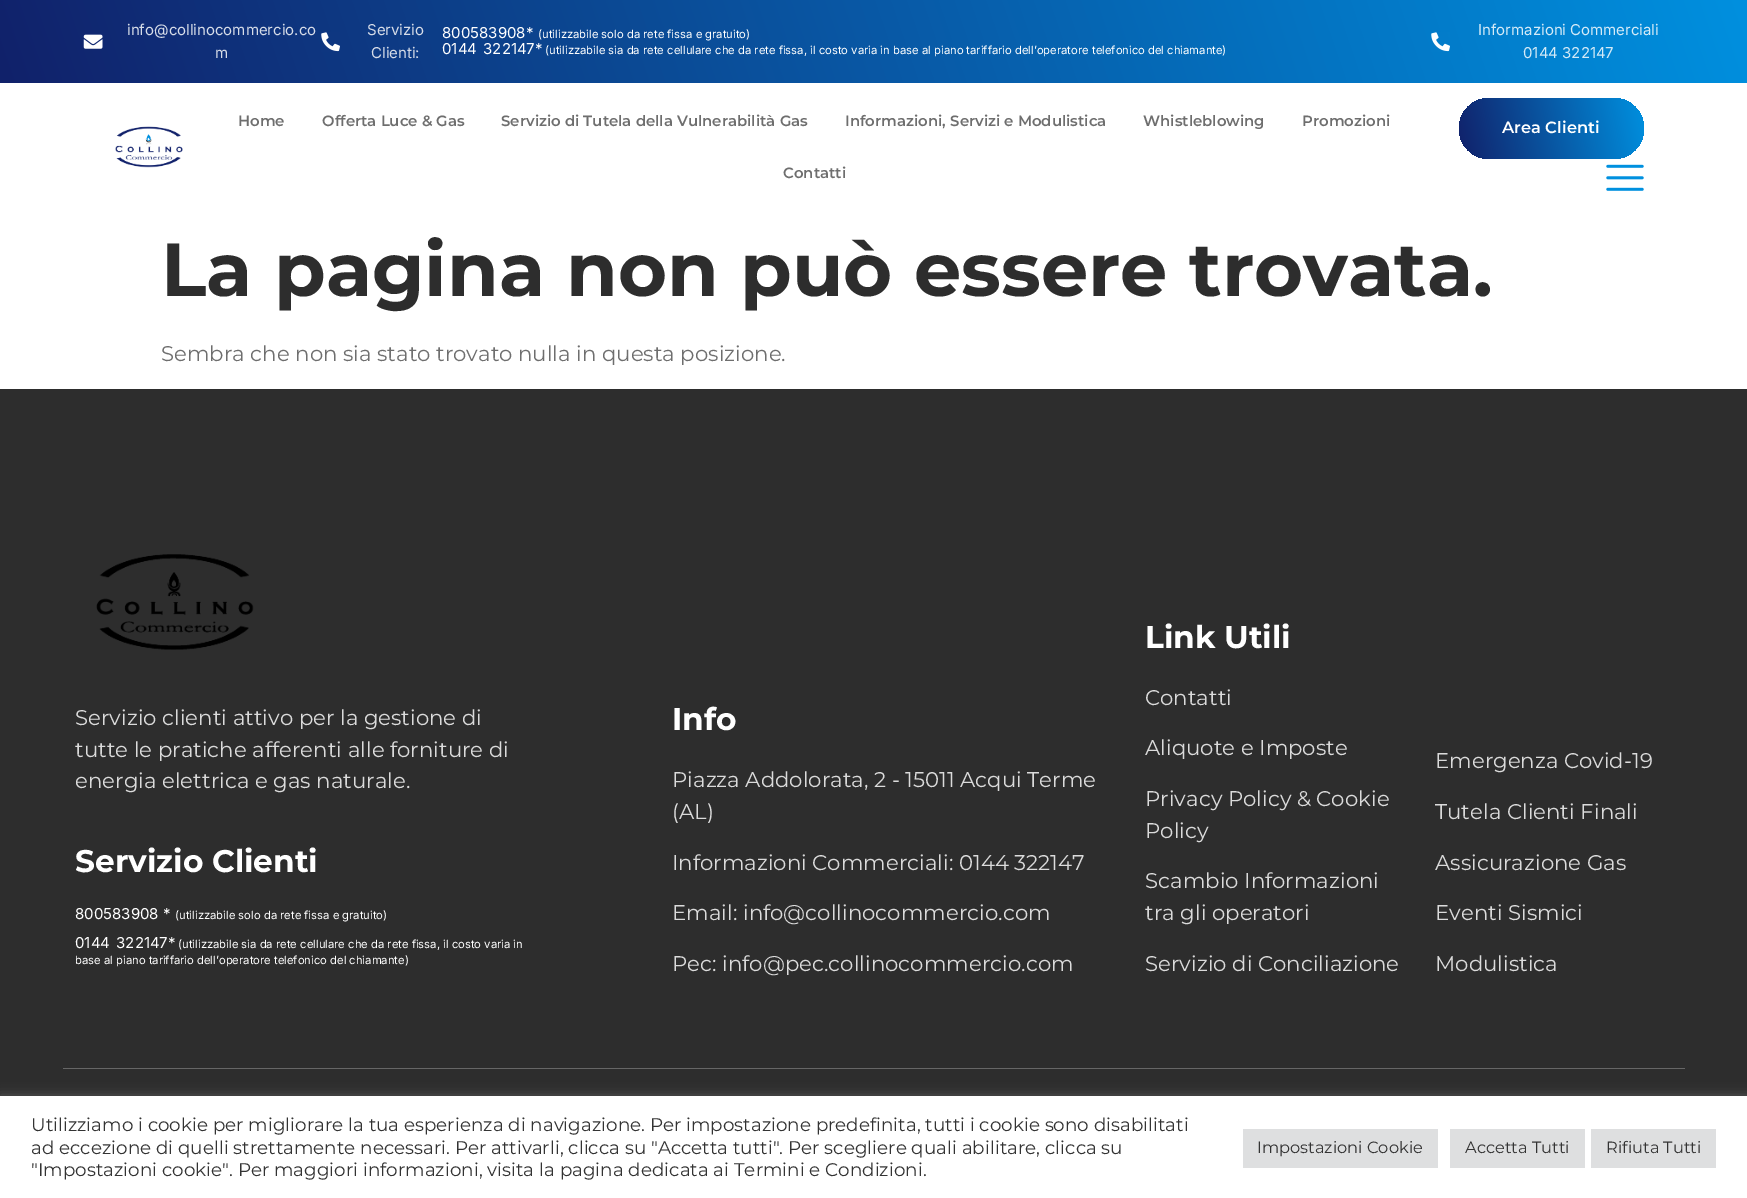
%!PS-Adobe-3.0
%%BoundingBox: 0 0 1747 1198
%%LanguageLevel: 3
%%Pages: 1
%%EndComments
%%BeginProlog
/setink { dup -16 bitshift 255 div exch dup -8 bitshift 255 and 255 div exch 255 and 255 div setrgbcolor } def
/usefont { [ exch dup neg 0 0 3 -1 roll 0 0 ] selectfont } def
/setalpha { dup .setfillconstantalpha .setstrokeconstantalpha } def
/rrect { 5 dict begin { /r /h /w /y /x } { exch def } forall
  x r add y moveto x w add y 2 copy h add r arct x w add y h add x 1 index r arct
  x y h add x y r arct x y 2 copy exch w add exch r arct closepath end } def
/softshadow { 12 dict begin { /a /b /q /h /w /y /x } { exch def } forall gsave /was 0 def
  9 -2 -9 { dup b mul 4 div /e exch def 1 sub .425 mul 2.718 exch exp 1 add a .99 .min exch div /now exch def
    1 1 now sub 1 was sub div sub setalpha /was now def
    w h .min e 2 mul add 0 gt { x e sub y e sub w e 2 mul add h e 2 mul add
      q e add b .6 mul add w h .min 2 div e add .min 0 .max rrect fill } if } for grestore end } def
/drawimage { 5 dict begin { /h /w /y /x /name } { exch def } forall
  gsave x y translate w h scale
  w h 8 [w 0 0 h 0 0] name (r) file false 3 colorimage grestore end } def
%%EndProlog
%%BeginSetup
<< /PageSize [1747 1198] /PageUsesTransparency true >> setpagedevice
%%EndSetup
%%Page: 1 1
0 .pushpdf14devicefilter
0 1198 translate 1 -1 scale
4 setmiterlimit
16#FFFFFF setink
0 0 1747 1198 rectfill
gsave 0 0 moveto 1747 0 lineto 1747 83 lineto 0 83 lineto closepath clip newpath
<< /ShadingType 2 /ColorSpace /DeviceRGB /Coords [1668 -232 80 315] /Extend [true true] /Function << /FunctionType 2 /Domain [0 1] /C0 [0 0.565 0.875] /C1 [0.067 0.129 0.416] /N 1 >> >> shfill grestore
(img1.raw) 83 34 20 15 drawimage
/Inter-Regular 15 usefont
16#D6DCE8 setink
127 35 moveto (info@collinocommercio.co) show
215 58 moveto (m) show
(img2.raw) 321 32 19 20 drawimage
367 35 moveto (Servizio) show
371 58 moveto (Clienti:) show
16#FFFFFF setink
442 38 moveto (800583908*) show
/Inter-Regular 11.25 usefont
538 38 moveto (\(utilizzabile solo da rete fissa e gratuito\)) show
/Inter-Regular 15 usefont
442 54 moveto 2 0 32 (0144 322147*) widthshow
/Inter-Regular 11.25 usefont
545 54 moveto (\(utilizzabile sia da rete cellulare che da rete fissa, il costo varia in base al piano tariffario dell’operatore telefonico del chiamante\)) show
(img3.raw) 1431 32 19 20 drawimage
/Inter-Regular 15 usefont
16#D4EAF7 setink
1478 35 moveto (Informazioni Commerciali) show
1523 58 moveto (0144 322147) show
(img4.raw) 115 126 68 42 drawimage
/Montserrat-SemiBold 14.9 usefont
16#6E6E6E setink
[
    [(Home) 238 126]
    [(Offerta Luce & Gas) 322 126]
    [(Servizio di Tutela della Vulnerabilità Gas) 501 126]
    [(Informazioni, Servizi e Modulistica) 845 126]
    [(Whistleblowing) 1143 126]
    [(Promozioni) 1302 126]
    [(Contatti) 783 178]
] { aload pop moveto show } forall
gsave 1459 98 185 61 30.5 rrect clip newpath
<< /ShadingType 2 /ColorSpace /DeviceRGB /Coords [1646 108 1457 148] /Extend [true true] /Function << /FunctionType 2 /Domain [0 1] /C0 [0 0.565 0.875] /C1 [0.067 0.129 0.416] /N 1 >> >> shfill grestore
/Montserrat-SemiBold 16.25 usefont
16#FFFFFF setink
1502 133 moveto (Area Clienti) show
(img5.raw) 1606 164 38 27 drawimage
/Montserrat-Bold 75 usefont
16#2D2D2D setink
161 296 moveto (La pagina non può essere trovata.) show
/Montserrat-Regular 21.25 usefont
16#6E6E6E setink
161 361 moveto (Sembra che non sia stato trovato nulla in questa posizione.) show
16#2D2D2D setink
0 389 1747 707 rectfill
(img6.raw) 96 554 158 96 drawimage
16#DBDBDB setink
[
    [(Servizio clienti attivo per la gestione di) 75 725]
    [(tutte le pratiche afferenti alle forniture di) 75 757]
    [(energia elettrica e gas naturale.) 75 788]
] { aload pop moveto show } forall
/Montserrat-Bold 31.25 usefont
16#FFFFFF setink
75 872 moveto (Servizio Clienti) show
/Inter-Regular 15 usefont
75 919 moveto (800583908 *) show
/Inter-Regular 11.25 usefont
175 919 moveto (\(utilizzabile solo da rete fissa e gratuito\)) show
/Inter-Regular 15 usefont
75 948 moveto 2 0 32 (0144 322147*) widthshow
/Inter-Regular 11.25 usefont
178 948 moveto (\(utilizzabile sia da rete cellulare che da rete fissa, il costo varia in) show
75 964 moveto (base al piano tariffario dell’operatore telefonico del chiamante\)) show
/Montserrat-Bold 31.25 usefont
672 730 moveto (Info) show
/Montserrat-Regular 21.25 usefont
16#DBDBDB setink
[
    [(Piazza Addolorata, 2 - 15011 Acqui Terme) 672 787]
    [(\(AL\)) 672 819]
    [(Informazioni Commerciali: 0144 322147) 672 870]
    [(Email: info@collinocommercio.com) 672 920]
    [(Pec: info@pec.collinocommercio.com) 672 971]
] { aload pop moveto show } forall
/Montserrat-Bold 31.25 usefont
16#FFFFFF setink
1145 648 moveto (Link Utili) show
/Montserrat-Regular 21.25 usefont
16#DBDBDB setink
[
    [(Contatti) 1145 705]
    [(Aliquote e Imposte) 1145 755]
    [(Privacy Policy & Cookie) 1145 806]
    [(Policy) 1145 838]
    [(Scambio Informazioni) 1145 888]
    [(tra gli operatori) 1145 920]
    [(Servizio di Conciliazione) 1145 971]
    [(Emergenza Covid-19) 1435 768]
    [(Tutela Clienti Finali) 1435 819]
    [(Assicurazione Gas) 1435 870]
    [(Eventi Sismici) 1435 920]
    [(Modulistica) 1435 971]
] { aload pop moveto show } forall
16#666666 setink
63 1068 1622 1 rectfill
16#ACABAB setink
0 1095 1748 103 0 6 0.3 softshadow
16#FFFFFF setink
0 1096 1747 102 rectfill
/Montserrat-Regular 18.33 usefont
16#333333 setink
[
    [(Utilizziamo i cookie per migliorare la tua esperienza di navigazione. Per impostazione predefinita, tutti i cookie sono disabilitati) 31 1131]
    [(ad eccezione di quelli strettamente necessari. Per attivarli, clicca su "Accetta tutti". Per scegliere quali abilitare, clicca su) 31 1154]
    [("Impostazioni cookie". Per maggiori informazioni, visita la pagina dedicata ai Termini e Condizioni.) 31 1176]
] { aload pop moveto show } forall
16#DEDFE0 setink
1243 1129 195 39 rectfill
/Montserrat-Regular 16.25 usefont
16#333333 setink
1257 1153 moveto (Impostazioni Cookie) show
16#DEDFE0 setink
1450 1129 135 39 rectfill
16#333333 setink
1465 1153 moveto (Accetta Tutti) show
16#DEDFE0 setink
1591 1129 125 39 rectfill
16#333333 setink
1606 1153 moveto (Rifiuta Tutti) show
.poppdf14devicefilter showpage
%%EOF
